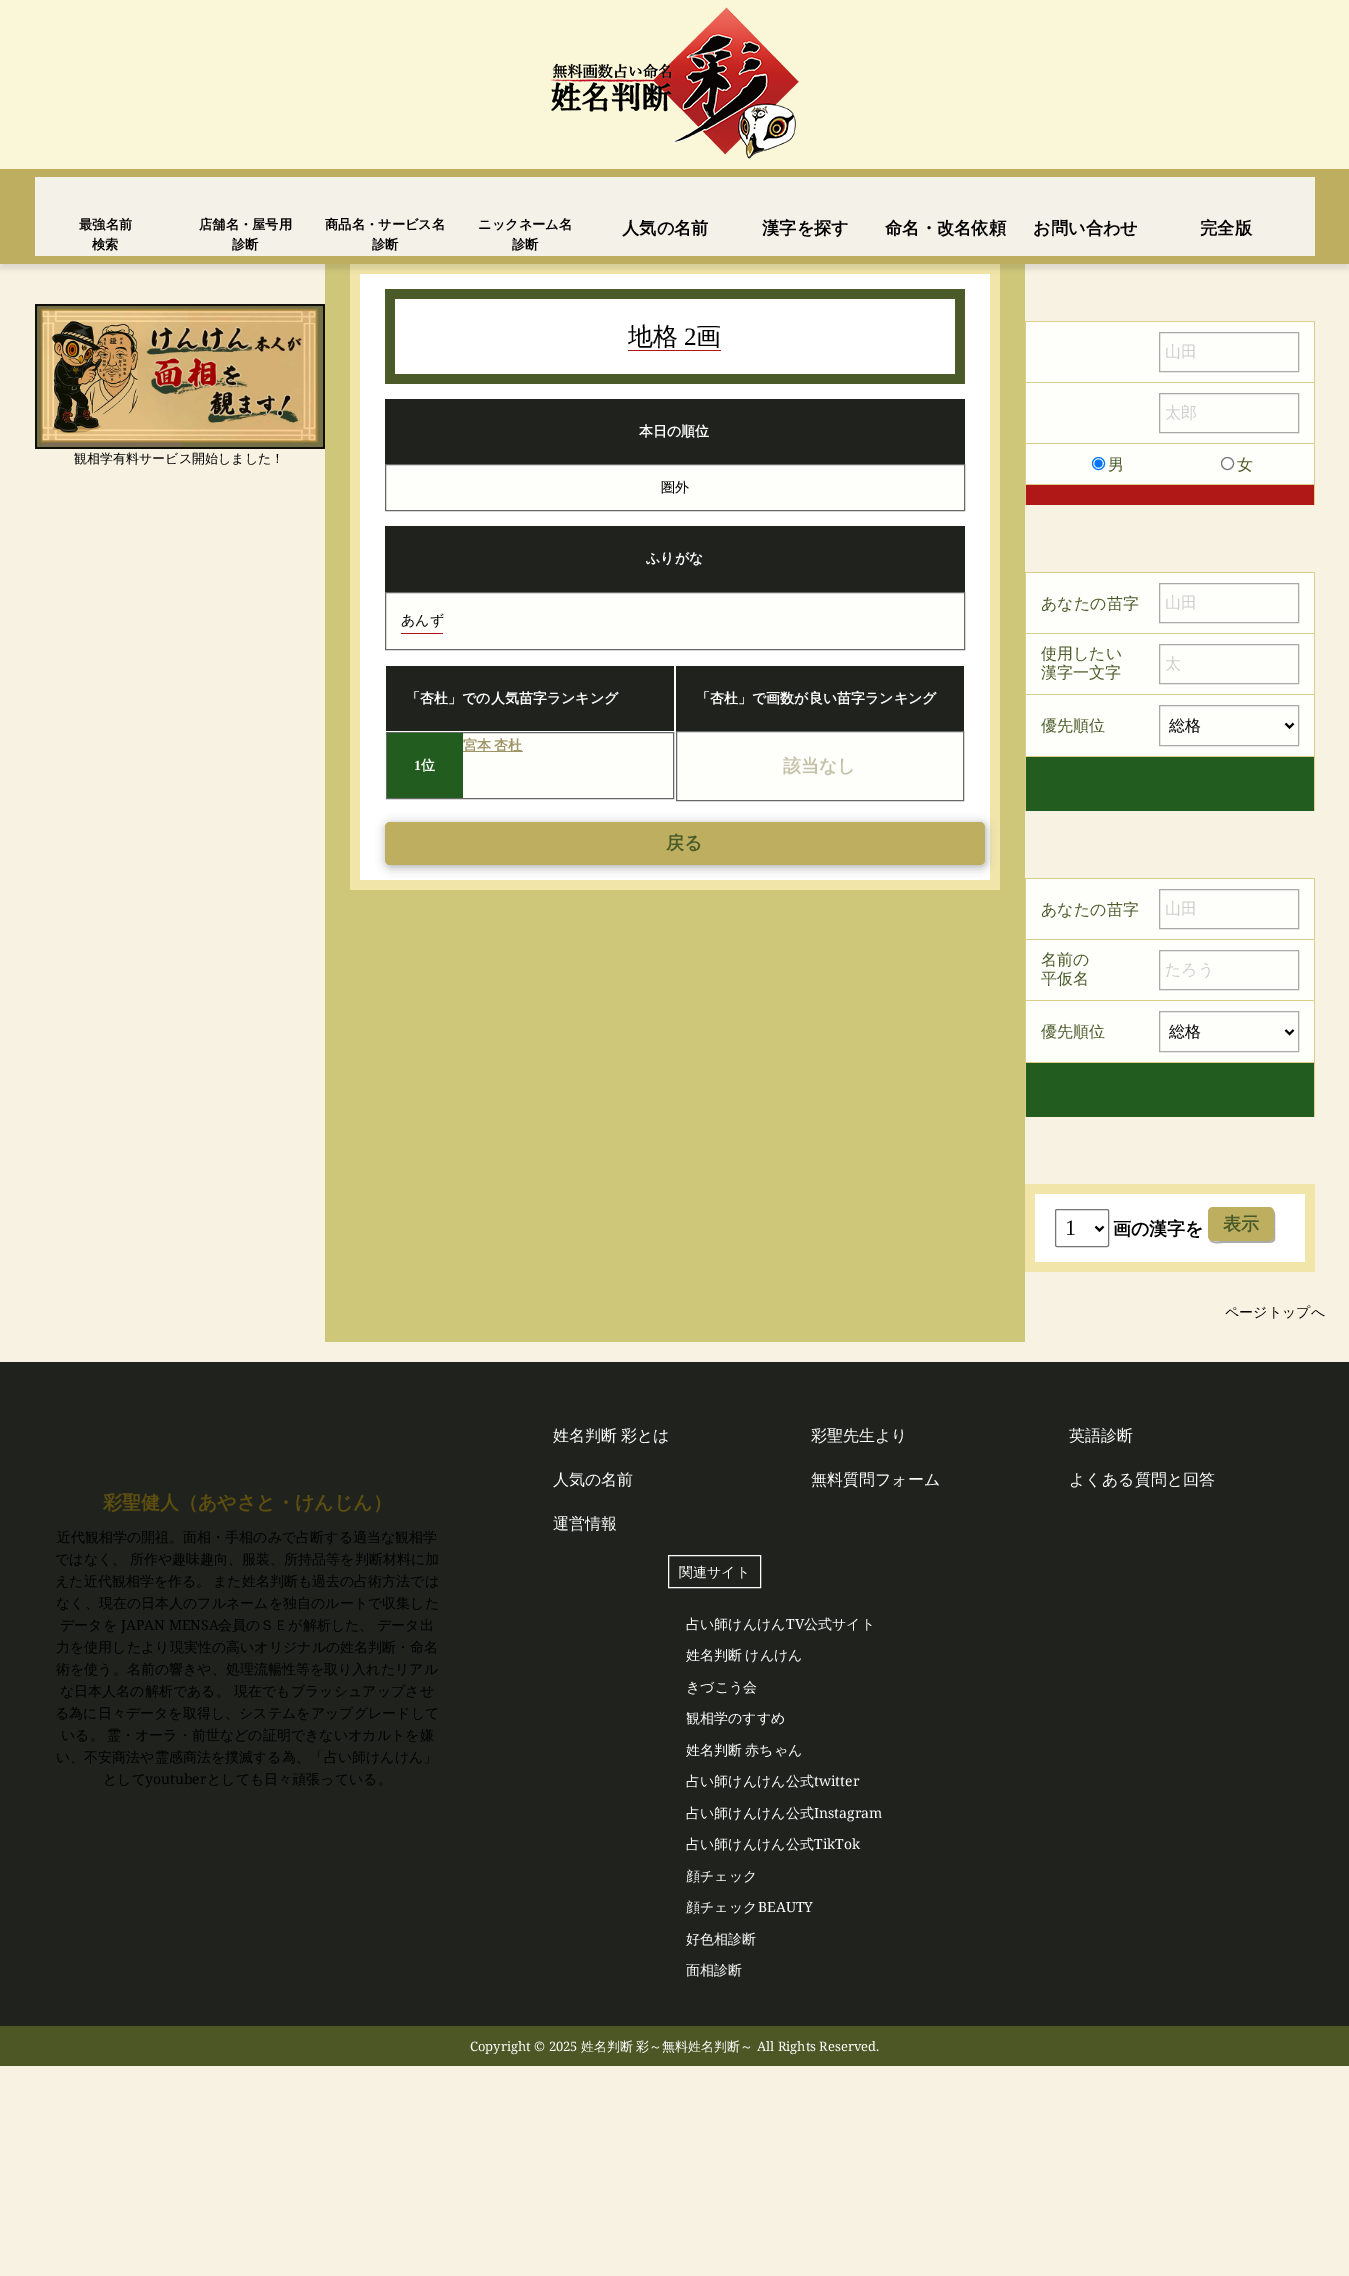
%!PS-Adobe-3.0
%%BoundingBox: 0 0 1349 2276
%%LanguageLevel: 3
%%Pages: 1
%%EndComments
%%BeginProlog
/setink { dup -16 bitshift 255 div exch dup -8 bitshift 255 and 255 div exch 255 and 255 div setrgbcolor } def
/usefont { [ exch dup neg 0 0 3 -1 roll 0 0 ] selectfont } def
/setalpha { dup .setfillconstantalpha .setstrokeconstantalpha } def
/disc { newpath 0 360 arc closepath } def
/rrect { 5 dict begin { /r /h /w /y /x } { exch def } forall
  x r add y moveto x w add y 2 copy h add r arct x w add y h add x 1 index r arct
  x y h add x y r arct x y 2 copy exch w add exch r arct closepath end } def
/softshadow { 12 dict begin { /a /b /q /h /w /y /x } { exch def } forall gsave /was 0 def
  9 -2 -9 { dup b mul 4 div /e exch def 1 sub .425 mul 2.718 exch exp 1 add a .99 .min exch div /now exch def
    1 1 now sub 1 was sub div sub setalpha /was now def
    w h .min e 2 mul add 0 gt { x e sub y e sub w e 2 mul add h e 2 mul add
      q e add b .6 mul add w h .min 2 div e add .min 0 .max rrect fill } if } for grestore end } def
/drawimage { 5 dict begin { /h /w /y /x /name } { exch def } forall
  gsave x y translate w h scale
  w h 8 [w 0 0 h 0 0] name (r) file false 3 colorimage grestore end } def
%%EndProlog
%%BeginSetup
<< /PageSize [1349 2276] /PageUsesTransparency true >> setpagedevice
%%EndSetup
%%Page: 1 1
0 .pushpdf14devicefilter
0 2276 translate 1 -1 scale
4 setmiterlimit
16#F8F2E2 setink
0 0 1349 2276 rectfill
16#F9F7D7 setink
0 0 1349 169 rectfill
(img1.raw) 551 7 248 152 drawimage
[
    [325 264 700 1078 16#CEC779]
    [350 264 650 626 16#F1E5A9]
    [360 274 630 606 16#FFFFFF]
] { aload pop setink rectfill } forall
16#000000 setink
0 174 1349 95 0 2.5 0.1 softshadow
16#BEAE60 setink
0 169 1349 95 rectfill
16#F4F1E8 setink
35 177 1280 79 rectfill
/WenQuanYiZenHei-Bold 13.25 usefont
16#000000 setink
[
    [(最強名前) 79 229]
    [(検索) 92 249]
    [(店舗名・屋号用) 199 229]
    [(診断) 232 249]
    [(商品名・サービス名) 325 229]
    [(診断) 372 249]
    [(ニックネーム名) 478 229]
    [(診断) 512 249]
] { aload pop moveto show } forall
/WenQuanYiZenHei-Bold 17.25 usefont
[
    [(人気の名前) 622 234]
    [(漢字を探す) 762 234]
    [(命名・改名依頼) 885 234]
    [(お問い合わせ) 1033 234]
    [(完全版) 1200 234]
] { aload pop moveto show } forall
(img2.raw) 35 304 290 145 drawimage
/WenQuanYiZenHei-Medium 13 usefont
74 463 moveto (観相学有料サービス開始しました！) show
16#4A5A29 setink
385 289 580 95 rectfill
16#FFFFFF setink
395 299 560 75 rectfill
/WenQuanYiZenHei-Medium 25 usefont
16#000000 setink
628 345 moveto (地格) show
/LiberationSerif-Regular 25 usefont
684 345 moveto (2) show
/WenQuanYiZenHei-Medium 25 usefont
696 345 moveto (画) show
16#B01717 setink
628 350 93 1 rectfill
16#20221D setink
385 399 580 65 rectfill
/WenQuanYiZenHei-Bold 14 usefont
16#FFFFFF setink
639 436 moveto (本日の順位) show
16#FEFFFA setink
385.5 464.5 moveto 964.5 464.5 lineto 964.5 510.5 lineto 385.5 510.5 lineto closepath gsave fill grestore
16#696868 setink
stroke
/WenQuanYiZenHei-Medium 14 usefont
16#000000 setink
661 492 moveto (圏外) show
16#20221D setink
385 526 580 66 rectfill
/WenQuanYiZenHei-Bold 14 usefont
16#FFFFFF setink
646 563 moveto (ふりがな) show
16#FEFFFA setink
385.5 592.5 moveto 964.5 592.5 lineto 964.5 649.5 lineto 385.5 649.5 lineto closepath gsave fill grestore
16#696868 setink
stroke
16#AE1717 setink
401 633 42 1 rectfill
/WenQuanYiZenHei-Medium 14 usefont
16#000000 setink
401 625 moveto (あんず) show
16#20221D setink
386 666 288 65 rectfill
/WenQuanYiZenHei-Bold 14 usefont
16#FFFFFF setink
406 703 moveto (「杏杜」での人気苗字ランキング) show
16#FEFFFA setink
463 733 210 65 rectfill
16#696868 setink
386.5 732.5 287 66 rectstroke
16#9E9566 setink
463 751 60 1 rectfill
463 750 moveto -1 0 32 (宮本 杏杜) widthshow
16#225D1F setink
387 733 76 65 rectfill
/LiberationSerif-Bold 14 usefont
16#FFFFFF setink
414 770 moveto (1) show
/WenQuanYiZenHei-Bold 14 usefont
421 770 moveto (位) show
16#20221D setink
676 666 288 65 rectfill
16#FFFFFF setink
696 703 moveto (「杏杜」で画数が良い苗字ランキング) show
16#FEFFFA setink
676.5 731.5 moveto 963.5 731.5 lineto 963.5 800.5 lineto 676.5 800.5 lineto closepath gsave fill grestore
16#696868 setink
stroke
/WenQuanYiZenHei-Bold 18 usefont
16#C5C1A9 setink
783 772 moveto (該当なし) show
16#AAAAAA setink
386 824 600 43 5 5 1 softshadow
16#BEAE60 setink
385 822 600 43 5 rrect fill
16#4A5A29 setink
666 849 moveto (戻る) show
[
    [1314 321 1 184 16#DBCE8B]
    [1025 484 290 1 16#DBCE8B]
    [1025 321 1 184 16#DBCE8B]
    [1026 322 288 60 16#FEFFFA]
    [1026 321 288 1 16#DBCE8B]
] { aload pop setink rectfill } forall
16#A9A9A9 setink
1159.5 332.5 139 39 rectstroke
/WenQuanYiZenHei-Medium 16 usefont
16#CDCDCD setink
1165 357 moveto (山田) show
16#FEFFFA setink
1026 383 288 60 rectfill
16#DBCE8B setink
1026 382 288 1 rectfill
16#A9A9A9 setink
1159.5 393.5 139 39 rectstroke
16#CDCDCD setink
1165 418 moveto (太郎) show
16#FEFFFA setink
1026 444 288 40 rectfill
16#DBCE8B setink
1026 443 288 1 rectfill
16#FFFFFF setink
1098.5 463.5 6 disc gsave fill grestore
16#0075FF setink
stroke
1098.5 463.5 4 disc fill
16#4A5A29 setink
1108 470 moveto (男) show
16#FFFFFF setink
1227.5 463.5 6 disc gsave fill grestore
16#767676 setink
stroke
16#4A5A29 setink
1237 470 moveto (女) show
[
    [1026 485 288 20 16#AF1816]
    [1314 572 1 239 16#DBCE8B]
    [1025 756 290 1 16#DBCE8B]
    [1025 572 1 239 16#DBCE8B]
    [1026 573 288 60 16#FEFFFA]
    [1026 572 288 1 16#DBCE8B]
] { aload pop setink rectfill } forall
16#4A5A29 setink
1041 609 moveto (あなたの苗字) show
16#A9A9A9 setink
1159.5 583.5 139 39 rectstroke
16#CDCDCD setink
1165 608 moveto (山田) show
16#FEFFFA setink
1026 634 288 60 rectfill
16#DBCE8B setink
1026 633 288 1 rectfill
16#4A5A29 setink
1041 659 moveto (使用したい) show
1041 678 moveto (漢字一文字) show
16#A9A9A9 setink
1159.5 644.5 139 39 rectstroke
16#CDCDCD setink
1165 669 moveto (太) show
16#FEFFFA setink
1026 695 288 61 rectfill
16#DBCE8B setink
1026 694 288 1 rectfill
16#4A5A29 setink
1041 731 moveto (優先順位) show
16#A9A9A9 setink
1159.5 705.5 139 40 rectstroke
16#000000 setink
2 setlinewidth
1285.5 723.5 moveto 1289.5 727.5 lineto 1293.5 723.5 lineto stroke
gsave
1169 716 108 19 rectclip
1169 731 moveto (総格) show
grestore
[
    [1026 757 288 54 16#225D1F]
    [1314 878 1 239 16#DBCE8B]
    [1025 1062 290 1 16#DBCE8B]
    [1025 878 1 239 16#DBCE8B]
    [1026 879 288 60 16#FEFFFA]
    [1026 878 288 1 16#DBCE8B]
] { aload pop setink rectfill } forall
16#4A5A29 setink
1041 915 moveto (あなたの苗字) show
16#A9A9A9 setink
1 setlinewidth
1159.5 889.5 139 39 rectstroke
16#CDCDCD setink
1165 914 moveto (山田) show
16#FEFFFA setink
1026 940 288 60 rectfill
16#DBCE8B setink
1026 939 288 1 rectfill
16#4A5A29 setink
1041 965 moveto (名前の) show
1041 984 moveto (平仮名) show
16#A9A9A9 setink
1159.5 950.5 139 39 rectstroke
16#CDCDCD setink
1165 975 moveto (たろう) show
16#FEFFFA setink
1026 1001 288 61 rectfill
16#DBCE8B setink
1026 1000 288 1 rectfill
16#4A5A29 setink
1041 1037 moveto (優先順位) show
16#A9A9A9 setink
1159.5 1011.5 139 40 rectstroke
16#000000 setink
2 setlinewidth
1285.5 1030 moveto 1289.5 1034 lineto 1293.5 1030 lineto stroke
gsave
1169 1022 108 19 rectclip
1169 1037 moveto (総格) show
grestore
[
    [1026 1063 288 54 16#225D1F]
    [1025 1184 290 88 16#F1E5A9]
    [1035 1194 270 68 16#FFFFFF]
] { aload pop setink rectfill } forall
16#767676 setink
1 setlinewidth
1055.5 1209.5 53 37 1.5 rrect stroke
16#000000 setink
2 setlinewidth
1095.5 1226.5 moveto 1099.5 1230.5 lineto 1103.5 1226.5 lineto stroke
/LiberationSerif-Regular 22 usefont
1065 1235 moveto (1) show
/WenQuanYiZenHei-Bold 18 usefont
1113 1235 moveto (画の漢字を) show
16#AAAAAA setink
1209 1239 moveto 1211 1245 1220 1243 1223 1243 curveto 1261 1243 lineto 1278 1243 1275 1243 1275 1226 curveto 1275 1223 1276 1214 1274 1211 curveto 1274 1228 lineto 1274 1242 1274 1241 1260 1241 curveto 1222 1241 lineto 1220 1241 1212 1243 1209 1239 curveto closepath fill
16#BEAE60 setink
1208 1207 66 34 5 rrect fill
16#4A5A29 setink
1223 1230 moveto (表示) show
/WenQuanYiZenHei-Medium 14 usefont
16#000000 setink
1225 1317 moveto (ページトップへ) show
16#20221D setink
0 1362 1349 664 rectfill
/WenQuanYiZenHei-Bold 19 usefont
16#5E4F0F setink
103 1509 moveto (彩聖健人（あやさと・けんじん）) show
/WenQuanYiZenHei-Medium 14 usefont
16#000000 setink
[
    [(近代観相学の開祖。面相・手相のみで占断する適当な観相学) 57 1542]
    [(ではなく、) 55 1564]
    [(所作や趣味趣向、服装、所持品等を判断材料に加) 130 1564]
    [(えた近代観相学を作る。) 55 1586]
    [(また姓名判断も過去の占術方法では) 213 1586]
    [(なく、現在の日本人のフルネームを独自のルートで収集した) 56 1608]
    [(データを) 60 1630]
] { aload pop moveto show } forall
/NotoSerif-Regular 14 usefont
121 1630 moveto (JAPAN MENSA) show
/WenQuanYiZenHei-Medium 14 usefont
[
    [(会員のＳＥが解析した、) 218 1630]
    [(データ出) 377 1630]
    [(力を使用したより現実性の高いオリジナルの姓名判断・命名) 56 1652]
    [(術を使う。名前の響きや、処理流暢性等を取り入れたリアル) 56 1674]
    [(な日本人名の解析である。) 60 1696]
    [(現在でもブラッシュアップさせ) 234 1696]
    [(る為に日々データを取得し、システムをアップグレードして) 55 1718]
    [(いる。) 61 1740]
    [(霊・オーラ・前世などの証明できないオカルトを嫌) 107 1740]
    [(い、不安商法や霊感商法を撲滅する為、「占い師けんけん」) 56 1762]
    [(として) 103 1784]
] { aload pop moveto show } forall
/NotoSerif-Regular 14 usefont
145 1784 moveto (youtuber) show
/WenQuanYiZenHei-Medium 14 usefont
207 1784 moveto (としても日々頑張っている。) show
/WenQuanYiZenHei-Medium 16 usefont
16#FFFFFF setink
553 1441 moveto -1 0 32 (姓名判断 彩とは) widthshow
[
    [(彩聖先生より) 811 1441]
    [(英語診断) 1069 1441]
    [(人気の名前) 553 1485]
    [(無料質問フォーム) 811 1485]
    [(よくある質問と回答) 1069 1485]
    [(運営情報) 553 1529]
] { aload pop moveto show } forall
1 setlinewidth
668.5 1555.5 92 32 rectstroke
/WenQuanYiZenHei-Medium 14 usefont
679 1577 moveto (関連サイト) show
686 1629 moveto (占い師けんけん) show
/NotoSerif-Regular 14 usefont
786 1629 moveto (TV) show
/WenQuanYiZenHei-Medium 14 usefont
804 1629 moveto (公式サイト) show
686 1660 moveto -1 0 32 (姓名判断 けんけん) widthshow
686 1692 moveto (きづこう会) show
686 1723 moveto (観相学のすすめ) show
686 1755 moveto -1 0 32 (姓名判断 赤ちゃん) widthshow
686 1786 moveto (占い師けんけん公式) show
/NotoSerif-Regular 14 usefont
814 1786 moveto (twitter) show
/WenQuanYiZenHei-Medium 14 usefont
686 1818 moveto (占い師けんけん公式) show
/NotoSerif-Regular 14 usefont
814 1818 moveto (Instagram) show
/WenQuanYiZenHei-Medium 14 usefont
686 1849 moveto (占い師けんけん公式) show
/NotoSerif-Regular 14 usefont
814 1849 moveto (TikTok) show
/WenQuanYiZenHei-Medium 14 usefont
686 1881 moveto (顔チェック) show
686 1912 moveto (顔チェック) show
/NotoSerif-Regular 14 usefont
758 1912 moveto (BEAUTY) show
/WenQuanYiZenHei-Medium 14 usefont
686 1944 moveto (好色相診断) show
686 1975 moveto (面相診断) show
16#4D5725 setink
0 2026 1349 40 rectfill
/NotoSerif-Regular 13 usefont
16#FFFFFF setink
470 2051 moveto (Copyright © 2025) show
/WenQuanYiZenHei-Medium 13 usefont
581 2051 moveto (姓名判断) show
636 2051 moveto (彩～無料姓名判断～) show
/NotoSerif-Regular 13 usefont
757 2051 moveto (All Rights Reserved.) show
.poppdf14devicefilter showpage
%%EOF
